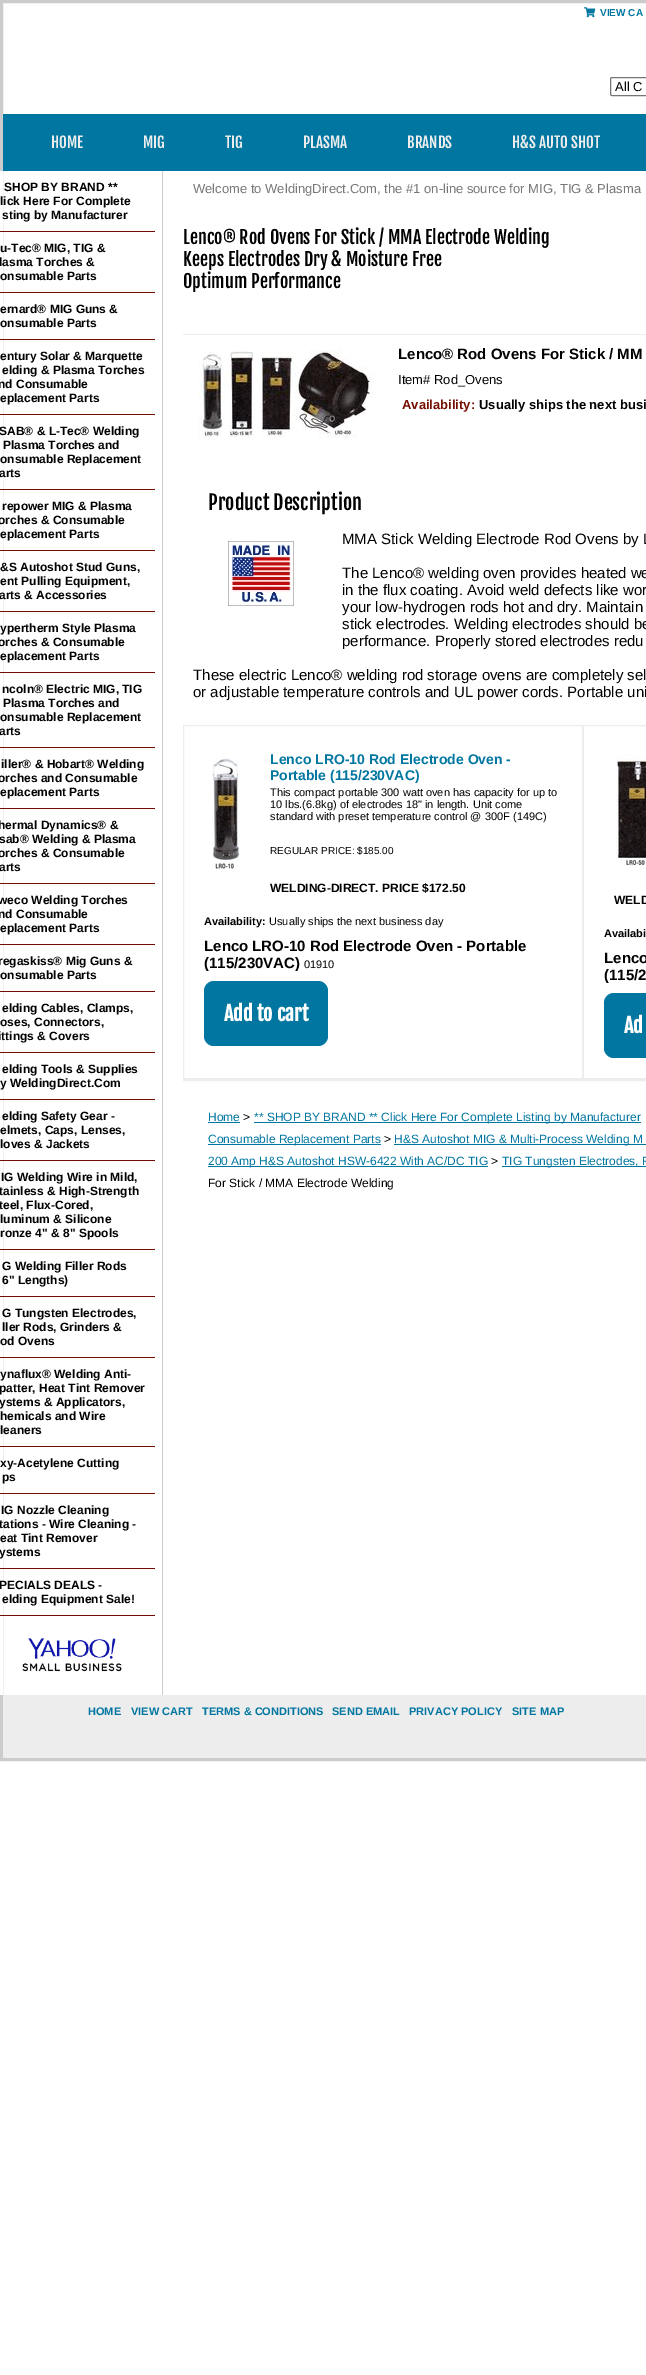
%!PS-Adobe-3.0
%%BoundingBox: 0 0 646 2375
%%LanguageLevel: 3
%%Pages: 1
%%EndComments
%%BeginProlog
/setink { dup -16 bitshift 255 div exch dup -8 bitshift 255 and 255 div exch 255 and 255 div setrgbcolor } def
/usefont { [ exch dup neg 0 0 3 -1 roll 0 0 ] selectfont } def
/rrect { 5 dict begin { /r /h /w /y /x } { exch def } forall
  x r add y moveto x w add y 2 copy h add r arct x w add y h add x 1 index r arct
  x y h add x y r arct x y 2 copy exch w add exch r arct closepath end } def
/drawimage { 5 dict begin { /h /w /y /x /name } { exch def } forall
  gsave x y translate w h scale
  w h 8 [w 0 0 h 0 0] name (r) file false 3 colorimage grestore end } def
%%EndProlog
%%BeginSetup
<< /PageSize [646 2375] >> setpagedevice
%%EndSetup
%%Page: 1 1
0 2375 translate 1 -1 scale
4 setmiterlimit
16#FFFFFF setink
0 0 646 2375 rectfill
16#CCCCCC setink
3 setlinewidth
1.5 1.5 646 1758 rectstroke
(img1.raw) 584 7 12 11 drawimage
/LiberationSans-Bold 10 usefont
16#0076A0 setink
600 16 moveto (VIEW CA) show
16#767676 setink
1 setlinewidth
610.5 77.5 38 18 1.5 rrect stroke
/LiberationSans-Regular 13 usefont
16#000000 setink
615 91 moveto (All C) show
16#0076A0 setink
3 114 643 57 rectfill
/FjallaOne-Regular 15 usefont
16#EDEDED setink
[
    [(HOME) 51 148]
    [(MIG) 143 148]
    [(TIG) 225 148]
    [(PLASMA) 303 148]
    [(BRANDS) 407 148]
    [(H&S AUTO SHOT) 512 148]
] { aload pop moveto show } forall
[
    [0 171 3 1524 16#FFFFFF]
    [162 171 1 1524 16#CCCCCC]
    [0 231 155 1 16#750E00]
] { aload pop setink rectfill } forall
/LiberationSans-Bold 12 usefont
16#000000 setink
[
    [(SHOP BY BRAND **) 4 191]
    [(lick Here For Complete) 0 205]
    [(sting by Manufacturer) 2 219]
] { aload pop moveto show } forall
16#750E00 setink
0 292 155 1 rectfill
16#000000 setink
[
    [(u-Tec® MIG, TIG &) 0 252]
    [(lasma Torches &) -1 266]
    [(onsumable Parts) 0 280]
] { aload pop moveto show } forall
16#750E00 setink
0 339 155 1 rectfill
16#000000 setink
0 313 moveto (ernard® MIG Guns &) show
0 327 moveto (onsumable Parts) show
16#750E00 setink
0 414 155 1 rectfill
16#000000 setink
[
    [(entury Solar & Marquette) 0 360]
    [(elding & Plasma Torches) 2 374]
    [(nd Consumable) -2 388]
    [(eplacement Parts) 0 402]
] { aload pop moveto show } forall
16#750E00 setink
0 489 155 1 rectfill
16#000000 setink
[
    [(SAB® & L-Tec® Welding) -1 435]
    [(Plasma Torches and) 3 449]
    [(onsumable Replacement) 0 463]
    [(arts) -1 477]
] { aload pop moveto show } forall
16#750E00 setink
0 550 155 1 rectfill
16#000000 setink
[
    [(repower MIG & Plasma) 2 510]
    [(orches & Consumable) -2 524]
    [(eplacement Parts) 0 538]
] { aload pop moveto show } forall
16#750E00 setink
0 611 155 1 rectfill
16#000000 setink
[
    [(&S Autoshot Stud Guns,) 0 571]
    [(ent Pulling Equipment,) 0 585]
    [(arts & Accessories) -1 599]
] { aload pop moveto show } forall
16#750E00 setink
0 672 155 1 rectfill
16#000000 setink
[
    [(ypertherm Style Plasma) 0 632]
    [(orches & Consumable) -2 646]
    [(eplacement Parts) 0 660]
] { aload pop moveto show } forall
16#750E00 setink
0 747 155 1 rectfill
16#000000 setink
[
    [(ncoln® Electric MIG, TIG) 2 693]
    [(Plasma Torches and) 3 707]
    [(onsumable Replacement) 0 721]
    [(arts) -1 735]
] { aload pop moveto show } forall
16#750E00 setink
0 808 155 1 rectfill
16#000000 setink
[
    [(iller® & Hobart® Welding) 1 768]
    [(orches and Consumable) -2 782]
    [(eplacement Parts) 0 796]
] { aload pop moveto show } forall
16#750E00 setink
0 883 155 1 rectfill
16#000000 setink
[
    [(hermal Dynamics® &) -2 829]
    [(sab® Welding & Plasma) -1 843]
    [(orches & Consumable) -2 857]
    [(arts) -1 871]
] { aload pop moveto show } forall
16#750E00 setink
0 944 155 1 rectfill
16#000000 setink
[
    [(weco Welding Torches) -2 904]
    [(nd Consumable) -2 918]
    [(eplacement Parts) 0 932]
] { aload pop moveto show } forall
16#750E00 setink
0 991 155 1 rectfill
16#000000 setink
-2 965 moveto (regaskiss® Mig Guns &) show
0 979 moveto (onsumable Parts) show
16#750E00 setink
0 1052 155 1 rectfill
16#000000 setink
[
    [(elding Cables, Clamps,) 2 1012]
    [(oses, Connectors,) 0 1026]
    [(ittings & Covers) -2 1040]
] { aload pop moveto show } forall
16#750E00 setink
0 1099 155 1 rectfill
16#000000 setink
2 1073 moveto (elding Tools & Supplies) show
0 1087 moveto (y WeldingDirect.Com) show
16#750E00 setink
0 1160 155 1 rectfill
16#000000 setink
[
    [(elding Safety Gear -) 2 1120]
    [(elmets, Caps, Lenses,) 0 1134]
    [(loves & Jackets) 0 1148]
] { aload pop moveto show } forall
16#750E00 setink
0 1249 155 1 rectfill
16#000000 setink
[
    [(IG Welding Wire in Mild,) 1 1181]
    [(tainless & High-Strength) -1 1195]
    [(teel, Flux-Cored,) -1 1209]
    [(luminum & Silicone) 0 1223]
    [(ronze 4" & 8" Spools) 0 1237]
] { aload pop moveto show } forall
16#750E00 setink
0 1296 155 1 rectfill
16#000000 setink
2 1270 moveto (G Welding Filler Rods) show
2 1284 moveto (6" Lengths\)) show
16#750E00 setink
0 1357 155 1 rectfill
16#000000 setink
[
    [(G Tungsten Electrodes,) 2 1317]
    [(ller Rods, Grinders &) 2 1331]
    [(od Ovens) 0 1345]
] { aload pop moveto show } forall
16#750E00 setink
0 1446 155 1 rectfill
16#000000 setink
[
    [(ynaflux® Welding Anti-) 0 1378]
    [(patter, Heat Tint Remover) -1 1392]
    [(ystems & Applicators,) -1 1406]
    [(hemicals and Wire) 0 1420]
    [(leaners) 0 1434]
] { aload pop moveto show } forall
16#750E00 setink
0 1493 155 1 rectfill
16#000000 setink
0 1467 moveto (xy-Acetylene Cutting) show
2 1481 moveto (ps) show
16#750E00 setink
0 1568 155 1 rectfill
16#000000 setink
[
    [(IG Nozzle Cleaning) 1 1514]
    [(tations - Wire Cleaning -) -1 1528]
    [(eat Tint Remover) 0 1542]
    [(ystems) -1 1556]
] { aload pop moveto show } forall
16#750E00 setink
0 1615 155 1 rectfill
16#000000 setink
-1 1589 moveto (PECIALS DEALS -) show
2 1603 moveto (elding Equipment Sale!) show
(img2.raw) 22 1638 100 34 drawimage
/LiberationSans-Regular 13 usefont
16#777777 setink
193 193 moveto (Welcome to WeldingDirect.Com, the #1 on-line source for MIG, TIG & Plasma) show
16#EDEDED setink
183 334 463 1 rectfill
/FjallaOne-Regular 18 usefont
16#000000 setink
[
    [(Lenco® Rod Ovens For Stick / MMA Electrode Welding) 183 244]
    [(Keeps Electrodes Dry & Moisture Free) 183 266]
    [(Optimum Performance) 183 288]
] { aload pop moveto show } forall
(img3.raw) 198 350 176 88 drawimage
/LiberationSans-Bold 15 usefont
398 359 moveto (Lenco® Rod Ovens For Stick / MM) show
/LiberationSans-Regular 13 usefont
398 384 moveto (Item# Rod_Ovens) show
/LiberationSans-Bold 13 usefont
16#750E00 setink
402 409 moveto (Availability:) show
16#000000 setink
479 409 moveto (Usually ships the next busi) show
/FjallaOne-Regular 20 usefont
208 510 moveto (Product Description) show
/LiberationSans-Regular 15 usefont
[
    [(MMA Stick Welding Electrode Rod Ovens by L) 342 544]
    [(The Lenco® welding oven provides heated we) 342 578]
    [(in the flux coating. Avoid weld defects like wor) 342 595]
    [(your low-hydrogen rods hot and dry. Maintain) 342 612]
    [(stick electrodes. Welding electrodes should be) 342 629]
    [(performance. Properly stored electrodes redu) 342 646]
    [(These electric Lenco® welding rod storage ovens are completely sel) 193 680]
    [(or adjustable temperature controls and UL power cords. Portable uni) 193 697]
] { aload pop moveto show } forall
(img4.raw) 228 541 66 65 drawimage
16#EDEDED setink
183.5 725.5 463 355 rectstroke
[
    [582 1078 64 2 16#EDEDED]
    [582 725 2 355 16#EDEDED]
    [183 1078 401 2 16#EDEDED]
] { aload pop setink rectfill } forall
(img5.raw) 212 758 28 111 drawimage
/LiberationSans-Bold 14 usefont
16#0076A0 setink
270 764 moveto (Lenco LRO-10 Rod Electrode Oven -) show
270 780 moveto (Portable \(115/230VAC\)) show
/LiberationSans-Regular 11 usefont
16#000000 setink
[
    [(This compact portable 300 watt oven has capacity for up to) 270 796]
    [(10 lbs.\(6.8kg\) of electrodes 18" in length. Unit come) 270 808]
    [(standard with preset temperature control @ 300F \(149C\)) 270 820]
] { aload pop moveto show } forall
/LiberationSans-Regular 10 usefont
270 854 moveto (REGULAR PRICE: $185.00) show
/LiberationSans-Bold 12 usefont
270 892 moveto (WELDING-DIRECT. PRICE $172.50) show
/LiberationSans-Bold 11 usefont
204 925 moveto (Availability:) show
/LiberationSans-Regular 11 usefont
269 925 moveto (Usually ships the next business day) show
/LiberationSans-Bold 15 usefont
204 951 moveto (Lenco LRO-10 Rod Electrode Oven - Portable) show
204 968 moveto (\(115/230VAC\)) show
/LiberationSans-Regular 11 usefont
304 968 moveto (01910) show
16#0076A0 setink
204 981 124 65 10 rrect fill
/FjallaOne-Bold 20 usefont
16#FFFFFF setink
224 1021 moveto (Add to cart) show
(img6.raw) 616 754 30 112 drawimage
/LiberationSans-Bold 12 usefont
16#000000 setink
614 904 moveto (WELD) show
/LiberationSans-Bold 11 usefont
604 937 moveto (Availabi) show
/LiberationSans-Bold 15 usefont
604 963 moveto (Lenco) show
604 980 moveto (\(115/2) show
16#0076A0 setink
604 993 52 65 10 rrect fill
/FjallaOne-Bold 20 usefont
16#FFFFFF setink
624 1033 moveto (Ad) show
/LiberationSans-Regular 12 usefont
16#0076A0 setink
208 1121 moveto (Home) show
208 1122 32 1 rectfill
16#000000 setink
243 1121 moveto (>) show
16#0076A0 setink
254 1122 387 1 rectfill
254 1121 moveto (** SHOP BY BRAND ** Click Here For Complete Listing by Manufacturer) show
208 1144 173 1 rectfill
208 1143 moveto (Consumable Replacement Parts) show
16#000000 setink
384 1143 moveto (>) show
16#0076A0 setink
394 1144 252 1 rectfill
394 1143 moveto (H&S Autoshot MIG & Multi-Process Welding M) show
208 1166 280 1 rectfill
208 1165 moveto (200 Amp H&S Autoshot HSW-6422 With AC/DC TIG) show
16#000000 setink
491 1165 moveto (>) show
16#0076A0 setink
502 1166 144 1 rectfill
502 1165 moveto (TIG Tungsten Electrodes, F) show
16#000000 setink
208 1187 moveto (For Stick / MMA Electrode Welding) show
16#EDEDED setink
3 1695 643 63 rectfill
/LiberationSans-Bold 11 usefont
16#0076A0 setink
[
    [(HOME) 88 1715]
    [(VIEW CART) 131 1715]
    [(TERMS & CONDITIONS) 202 1715]
    [(SEND EMAIL) 332 1715]
    [(PRIVACY POLICY) 409 1715]
    [(SITE MAP) 512 1715]
] { aload pop moveto show } forall
showpage
%%EOF
